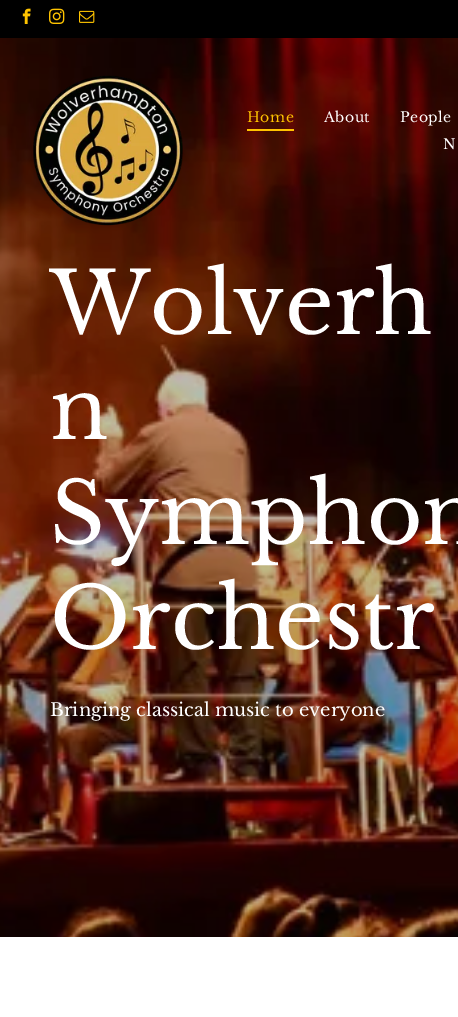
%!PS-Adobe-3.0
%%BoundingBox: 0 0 458 1017
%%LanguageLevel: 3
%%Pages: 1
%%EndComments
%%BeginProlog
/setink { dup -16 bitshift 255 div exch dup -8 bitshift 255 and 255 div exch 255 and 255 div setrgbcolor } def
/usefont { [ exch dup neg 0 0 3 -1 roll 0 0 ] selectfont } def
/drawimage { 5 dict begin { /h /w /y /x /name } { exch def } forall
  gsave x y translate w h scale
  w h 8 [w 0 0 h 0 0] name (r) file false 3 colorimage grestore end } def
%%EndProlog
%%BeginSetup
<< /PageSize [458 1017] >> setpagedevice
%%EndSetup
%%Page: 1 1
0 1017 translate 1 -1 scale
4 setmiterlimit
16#FFFFFF setink
0 0 458 1017 rectfill
16#000000 setink
0 0 458 38 rectfill
(img1.raw) 22 8 9 16 drawimage
(img2.raw) 49 8 16 16 drawimage
(img3.raw) 79 10 16 13 drawimage
(img5.raw) 0 38 458 899 drawimage
(img4.raw) 33 75 150 151 drawimage
/LibreBaskerville-Regular 14 usefont
16#FFC400 setink
247 122 moveto 0.5 0 (Home) ashow
247 129 47 2 rectfill
16#FFFFFF setink
324 122 moveto 0.5 0 (About) ashow
400 122 moveto 0.5 0 (People) ashow
443 149 moveto 0.5 0 (N) ashow
/LibreBaskerville-Regular 85 usefont
[
    [(Wolverh) 50 334]
    [(n) 50 439]
    [(Symphon) 50 544]
    [(Orchestr) 50 649]
] { aload pop moveto show } forall
/LibreBaskerville-Regular 18 usefont
50 716 moveto (Bringing classical music to everyone) show
showpage
%%EOF
